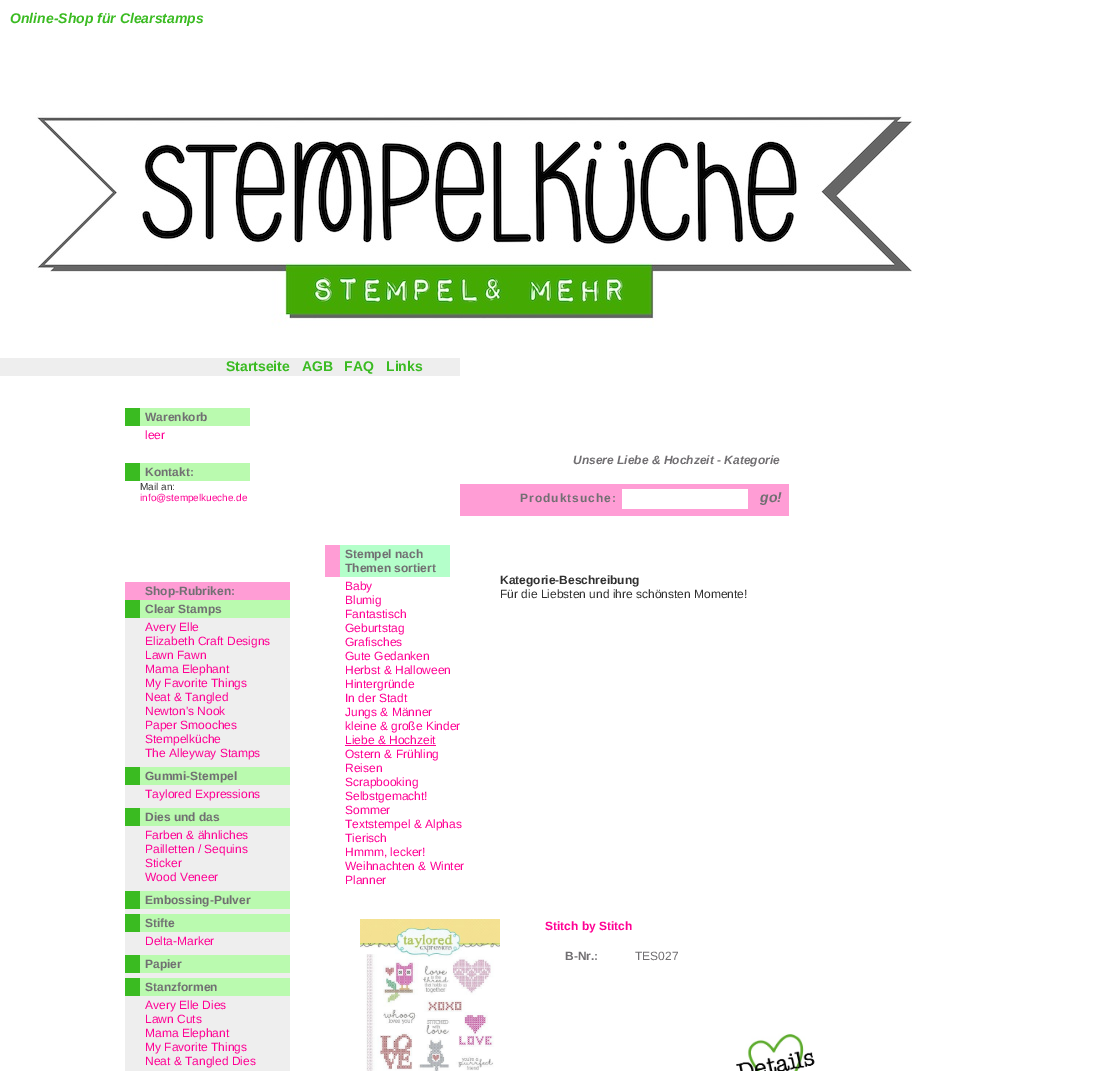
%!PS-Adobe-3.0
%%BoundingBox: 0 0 1103 1071
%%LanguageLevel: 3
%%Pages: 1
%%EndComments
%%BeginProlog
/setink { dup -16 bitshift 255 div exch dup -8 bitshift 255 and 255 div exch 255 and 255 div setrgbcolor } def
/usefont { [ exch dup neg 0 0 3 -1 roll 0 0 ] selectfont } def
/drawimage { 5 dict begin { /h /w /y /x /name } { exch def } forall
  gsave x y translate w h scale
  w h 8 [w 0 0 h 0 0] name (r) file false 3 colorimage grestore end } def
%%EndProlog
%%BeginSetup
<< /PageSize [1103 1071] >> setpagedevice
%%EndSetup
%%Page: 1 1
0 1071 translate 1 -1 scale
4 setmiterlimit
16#FFFFFF setink
0 0 1103 1071 rectfill
/LiberationSans-BoldItalic 14 usefont
16#3ABB21 setink
10 23 moveto (Online-Shop für Clearstamps) show
(img1.raw) 33 113 879 215 drawimage
16#EEEEEE setink
0 358 460 18 rectfill
/LiberationSans-Bold 14 usefont
16#3ABB21 setink
[
    [(Startseite) 226 371]
    [(AGB) 302 371]
    [(FAQ) 344 371]
    [(Links) 386 371]
] { aload pop moveto show } forall
16#BAFAAF setink
140 408 110 18 rectfill
16#3ABB21 setink
125 408 15 18 rectfill
/LiberationSans-Bold 12 usefont
16#716F72 setink
145 421 moveto (Warenkorb) show
/LiberationSans-Regular 12 usefont
16#FF0094 setink
145 439 moveto (leer) show
16#BAFAAF setink
140 463 110 18 rectfill
16#3ABB21 setink
125 463 15 18 rectfill
/LiberationSans-Bold 12 usefont
16#716F72 setink
145 476 moveto (Kontakt:) show
/LiberationSans-Regular 10 usefont
16#303030 setink
140 490 moveto (Mail an:) show
16#FF0094 setink
140 501 moveto (info@stempelkueche.de) show
/LiberationSans-BoldItalic 12 usefont
16#716F72 setink
573 464 moveto (Unsere Liebe & Hochzeit - Kategorie) show
16#FF9DD5 setink
460 484 329 32 rectfill
/LiberationSans-Bold 12 usefont
16#716F72 setink
520 502 moveto 1 0 (Produktsuche:) ashow
16#FFFFFF setink
622 489 126 20 rectfill
/LiberationSans-BoldItalic 14 usefont
16#716F72 setink
760 502 moveto (go!) show
16#EEEEEE setink
125 618 165 453 rectfill
16#FF9DD5 setink
125 582 165 18 rectfill
/LiberationSans-Bold 12 usefont
16#716F72 setink
145 595 moveto (Shop-Rubriken:) show
16#BAFAAF setink
140 600 150 18 rectfill
16#3ABB21 setink
125 600 15 18 rectfill
16#716F72 setink
145 613 moveto (Clear Stamps) show
/LiberationSans-Regular 12 usefont
16#FF0094 setink
[
    [(Avery Elle) 145 631]
    [(Elizabeth Craft Designs) 145 645]
    [(Lawn Fawn) 145 659]
    [(Mama Elephant) 145 673]
    [(My Favorite Things) 145 687]
    [(Neat & Tangled) 145 701]
    [(Newton's Nook) 145 715]
    [(Paper Smooches) 145 729]
    [(Stempelküche) 145 743]
    [(The Alleyway Stamps) 145 757]
] { aload pop moveto show } forall
16#BAFAAF setink
140 767 150 18 rectfill
16#3ABB21 setink
125 767 15 18 rectfill
/LiberationSans-Bold 12 usefont
16#716F72 setink
145 780 moveto (Gummi-Stempel) show
/LiberationSans-Regular 12 usefont
16#FF0094 setink
145 798 moveto (Taylored Expressions) show
16#BAFAAF setink
140 808 150 18 rectfill
16#3ABB21 setink
125 808 15 18 rectfill
/LiberationSans-Bold 12 usefont
16#716F72 setink
145 821 moveto (Dies und das) show
/LiberationSans-Regular 12 usefont
16#FF0094 setink
[
    [(Farben & ähnliches) 145 839]
    [(Pailletten / Sequins) 145 853]
    [(Sticker) 145 867]
    [(Wood Veneer) 145 881]
] { aload pop moveto show } forall
16#BAFAAF setink
140 891 150 18 rectfill
16#3ABB21 setink
125 891 15 18 rectfill
/LiberationSans-Bold 12 usefont
16#716F72 setink
145 904 moveto (Embossing-Pulver) show
16#BAFAAF setink
140 914 150 18 rectfill
16#3ABB21 setink
125 914 15 18 rectfill
16#716F72 setink
145 927 moveto (Stifte) show
/LiberationSans-Regular 12 usefont
16#FF0094 setink
145 945 moveto (Delta-Marker) show
16#BAFAAF setink
140 955 150 18 rectfill
16#3ABB21 setink
125 955 15 18 rectfill
/LiberationSans-Bold 12 usefont
16#716F72 setink
145 968 moveto (Papier) show
16#BAFAAF setink
140 978 150 18 rectfill
16#3ABB21 setink
125 978 15 18 rectfill
16#716F72 setink
145 991 moveto (Stanzformen) show
/LiberationSans-Regular 12 usefont
16#FF0094 setink
[
    [(Avery Elle Dies) 145 1009]
    [(Lawn Cuts) 145 1023]
    [(Mama Elephant) 145 1037]
    [(My Favorite Things) 145 1051]
    [(Neat & Tangled Dies) 145 1065]
] { aload pop moveto show } forall
16#B4FFCA setink
340 545 110 32 rectfill
16#FF9DD5 setink
325 545 15 32 rectfill
/LiberationSans-Bold 12 usefont
16#716F72 setink
345 558 moveto (Stempel nach) show
345 572 moveto (Themen sortiert) show
/LiberationSans-Regular 12 usefont
16#FF0094 setink
[
    [(Baby) 345 590]
    [(Blumig) 345 604]
    [(Fantastisch) 345 618]
    [(Geburtstag) 345 632]
    [(Grafisches) 345 646]
    [(Gute Gedanken) 345 660]
    [(Herbst & Halloween) 345 674]
    [(Hintergründe) 345 688]
    [(In der Stadt) 345 702]
    [(Jungs & Männer) 345 716]
    [(kleine & große Kinder) 345 730]
    [(Liebe & Hochzeit) 345 744]
] { aload pop moveto show } forall
345 745 91 1 rectfill
[
    [(Ostern & Frühling) 345 758]
    [(Reisen) 345 772]
    [(Scrapbooking) 345 786]
    [(Selbstgemacht!) 345 800]
    [(Sommer) 345 814]
    [(Textstempel & Alphas) 345 828]
    [(Tierisch) 345 842]
    [(Hmmm, lecker!) 345 856]
    [(Weihnachten & Winter) 345 870]
    [(Planner) 345 884]
] { aload pop moveto show } forall
/LiberationSans-Bold 12 usefont
16#303030 setink
500 584 moveto (Kategorie-Beschreibung) show
/LiberationSans-Regular 12 usefont
500 598 moveto (Für die Liebsten und ihre schönsten Momente!) show
(img2.raw) 360 919 140 152 drawimage
/LiberationSans-Bold 12 usefont
16#FF0094 setink
545 930 moveto (Stitch by Stitch) show
16#716F72 setink
565 960 moveto (B-Nr.:) show
/LiberationSans-Regular 12 usefont
635 960 moveto (TES027) show
(img3.raw) 736 1033 79 38 drawimage
showpage
%%EOF
